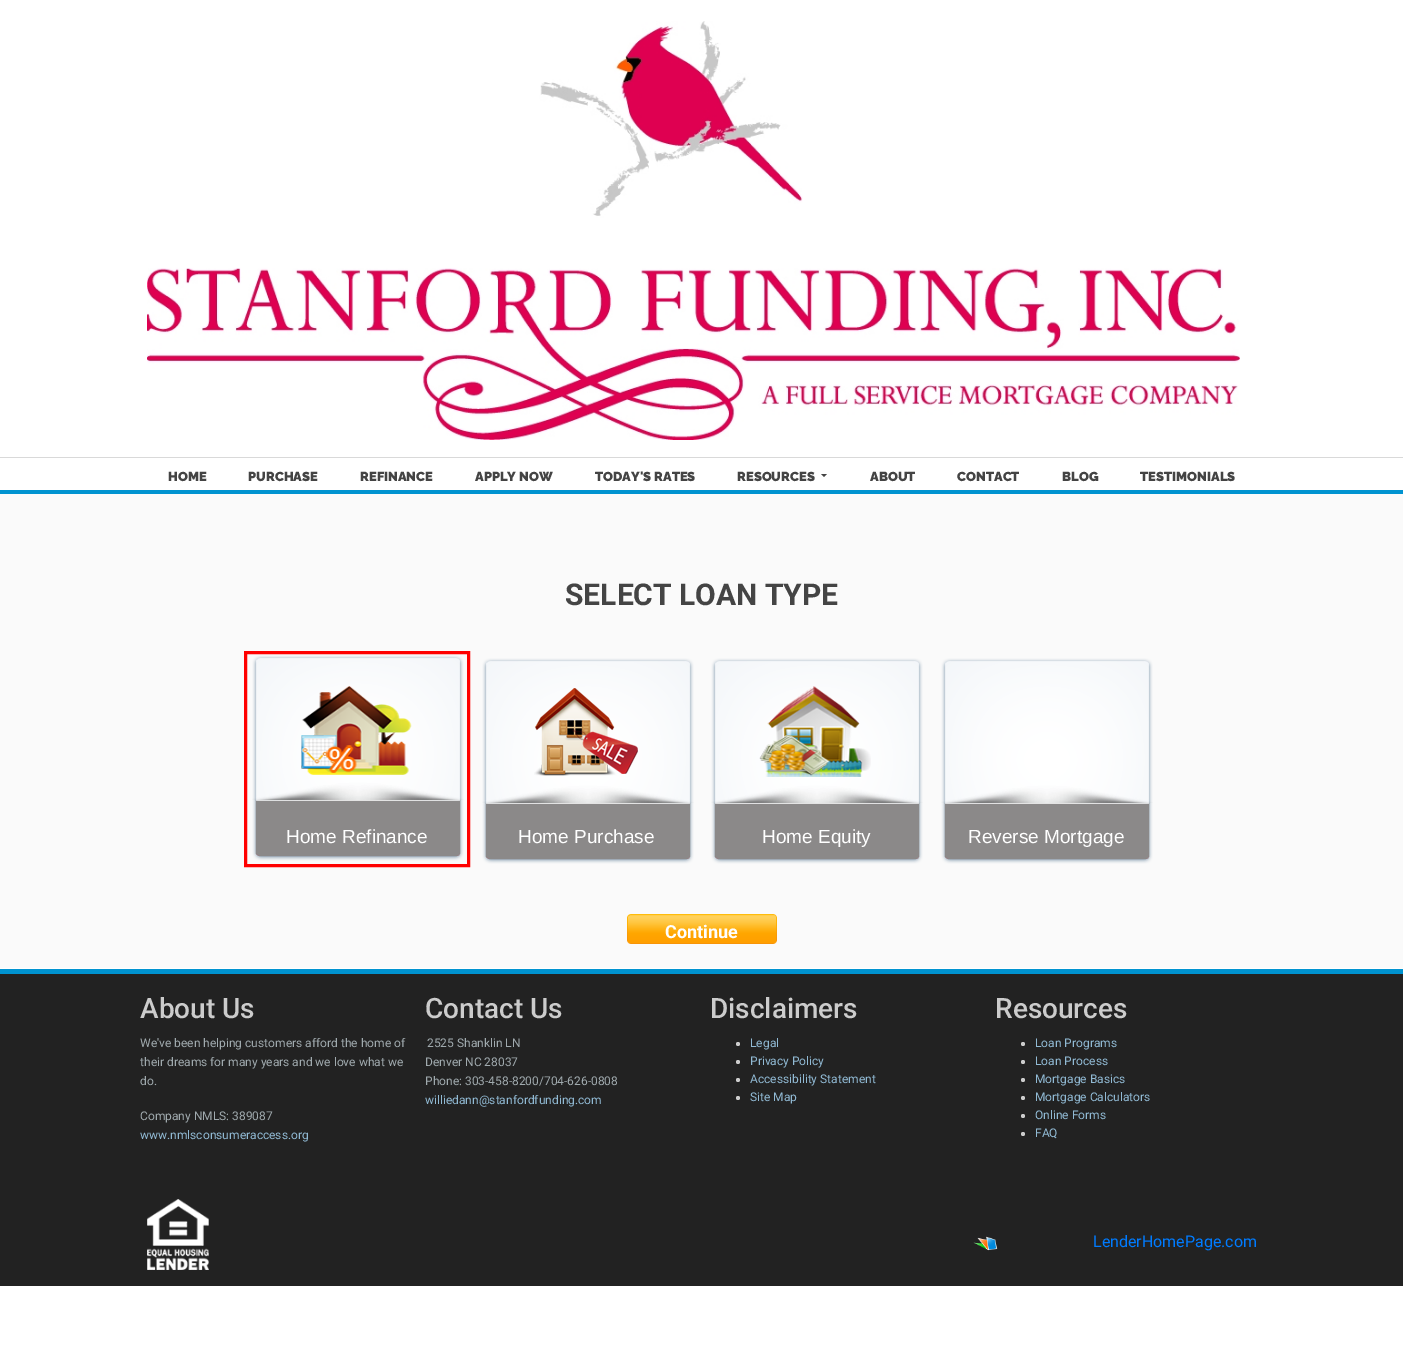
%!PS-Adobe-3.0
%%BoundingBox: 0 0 1403 1351
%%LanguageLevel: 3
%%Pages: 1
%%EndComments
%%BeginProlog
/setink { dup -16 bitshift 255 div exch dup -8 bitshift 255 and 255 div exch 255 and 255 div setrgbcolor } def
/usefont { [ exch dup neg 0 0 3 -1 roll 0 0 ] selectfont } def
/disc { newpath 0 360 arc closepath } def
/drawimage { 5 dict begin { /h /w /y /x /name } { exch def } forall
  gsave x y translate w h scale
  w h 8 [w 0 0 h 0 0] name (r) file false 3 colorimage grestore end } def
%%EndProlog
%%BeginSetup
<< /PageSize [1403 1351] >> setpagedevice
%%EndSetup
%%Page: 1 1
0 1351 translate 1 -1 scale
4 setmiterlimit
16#FFFFFF setink
0 0 1403 1351 rectfill
(img1.raw) 147 21 1093 419 drawimage
16#D9D9D9 setink
0 457 1403 1 rectfill
/Raleway-Black 13 usefont
16#444444 setink
[
    [(HOME) 168 481]
    [(PURCHASE) 248 481]
    [(REFINANCE) 360 481]
    [(APPLY NOW) 475 481]
    [(TODAY'S RATES) 595 481]
    [(RESOURCES) 737 481]
] { aload pop moveto show } forall
821 474 moveto 827 474 lineto 824 477 lineto closepath fill
[
    [(ABOUT) 870 481]
    [(CONTACT) 957 481]
    [(BLOG) 1062 481]
    [(TESTIMONIALS) 1140 481]
] { aload pop moveto show } forall
16#FAFAFA setink
0 494 1403 474 rectfill
16#0093D0 setink
0 490 1403 4 rectfill
/Roboto-Bold 30 usefont
16#444444 setink
565 605 moveto (SELECT LOAN TYPE) show
(img2.raw) 252 655 212 206 drawimage
16#FF0000 setink
3 setlinewidth
245.5 652.5 223 213 rectstroke
(img3.raw) 301 686 111 89 drawimage
/LiberationSans-Regular 19 usefont
16#FFFFFF setink
286 843 moveto (Home Refinance) show
(img2.raw) 482 658 212 206 drawimage
(img4.raw) 534 688 104 88 drawimage
518 843 moveto (Home Purchase) show
(img2.raw) 711 658 212 206 drawimage
(img5.raw) 759 686 112 91 drawimage
762 843 moveto (Home Equity) show
(img2.raw) 941 658 212 206 drawimage
968 843 moveto (Reverse Mortgage) show
(img6.raw) 627 914 150 30 drawimage
/Roboto-Bold 18 usefont
665 938 moveto (Continue) show
16#222222 setink
0 974 1403 312 rectfill
16#0093D0 setink
0 969 1403 5 rectfill
/Roboto-Medium 28 usefont
16#CCCCCC setink
140 1018 moveto (About Us) show
/Roboto-Regular 12 usefont
16#A0AAAE setink
[
    [(We've been helping customers afford the home of) 140 1047]
    [(their dreams for many years and we love what we) 140 1066]
    [(do.) 140 1085]
    [(Company NMLS: 389087) 140 1120]
] { aload pop moveto show } forall
16#91BAD4 setink
140 1139 moveto (www.nmlsconsumeraccess.org) show
/Roboto-Medium 28 usefont
16#CCCCCC setink
425 1018 moveto (Contact Us) show
/Roboto-Regular 12 usefont
16#A0AAAE setink
[
    [(2525 Shanklin LN) 427 1047]
    [(Denver NC 28037) 425 1066]
    [(Phone: 303-458-8200/704-626-0808) 425 1085]
] { aload pop moveto show } forall
16#91BAD4 setink
425 1104 moveto (williedann@stanfordfunding.com) show
/Roboto-Medium 28 usefont
16#CCCCCC setink
710 1018 moveto (Disclaimers) show
738 1044 2 disc fill
/Roboto-Regular 12 usefont
16#91BAD4 setink
750 1047 moveto (Legal) show
16#CCCCCC setink
738 1062 2 disc fill
16#91BAD4 setink
750 1065 moveto (Privacy Policy) show
16#CCCCCC setink
738 1080 2 disc fill
16#91BAD4 setink
750 1083 moveto (Accessibility Statement) show
16#CCCCCC setink
738 1098 2 disc fill
16#91BAD4 setink
750 1101 moveto (Site Map) show
/Roboto-Medium 28 usefont
16#CCCCCC setink
995 1018 moveto (Resources) show
1023 1044 2 disc fill
/Roboto-Regular 12 usefont
16#91BAD4 setink
1035 1047 moveto (Loan Programs) show
16#CCCCCC setink
1023 1062 2 disc fill
16#91BAD4 setink
1035 1065 moveto (Loan Process) show
16#CCCCCC setink
1023 1080 2 disc fill
16#91BAD4 setink
1035 1083 moveto (Mortgage Basics) show
16#CCCCCC setink
1023 1098 2 disc fill
16#91BAD4 setink
1035 1101 moveto (Mortgage Calculators) show
16#CCCCCC setink
1023 1116 2 disc fill
16#91BAD4 setink
1035 1119 moveto (Online Forms) show
16#CCCCCC setink
1023 1134 2 disc fill
16#91BAD4 setink
1035 1137 moveto (FAQ) show
(img7.raw) 147 1199 62 71 drawimage
(img8.raw) 973 1236 25 15 drawimage
/Roboto-Regular 16 usefont
16#007BFF setink
1093 1247 moveto (LenderHomePage.com) show
showpage
%%EOF
